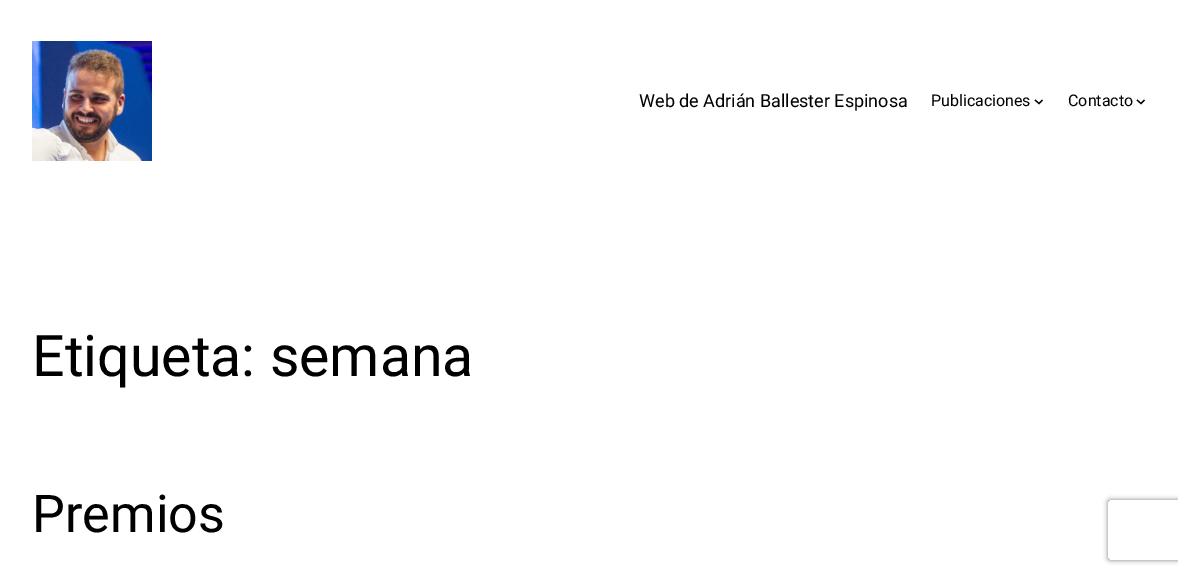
%!PS-Adobe-3.0
%%BoundingBox: 0 0 1178 574
%%LanguageLevel: 3
%%Pages: 1
%%EndComments
%%BeginProlog
/setink { dup -16 bitshift 255 div exch dup -8 bitshift 255 and 255 div exch 255 and 255 div setrgbcolor } def
/usefont { [ exch dup neg 0 0 3 -1 roll 0 0 ] selectfont } def
/setalpha { dup .setfillconstantalpha .setstrokeconstantalpha } def
/rrect { 5 dict begin { /r /h /w /y /x } { exch def } forall
  x r add y moveto x w add y 2 copy h add r arct x w add y h add x 1 index r arct
  x y h add x y r arct x y 2 copy exch w add exch r arct closepath end } def
/softshadow { 12 dict begin { /a /b /q /h /w /y /x } { exch def } forall gsave /was 0 def
  9 -2 -9 { dup b mul 4 div /e exch def 1 sub .425 mul 2.718 exch exp 1 add a .99 .min exch div /now exch def
    1 1 now sub 1 was sub div sub setalpha /was now def
    w h .min e 2 mul add 0 gt { x e sub y e sub w e 2 mul add h e 2 mul add
      q e add b .6 mul add w h .min 2 div e add .min 0 .max rrect fill } if } for grestore end } def
/drawimage { 5 dict begin { /h /w /y /x /name } { exch def } forall
  gsave x y translate w h scale
  w h 8 [w 0 0 h 0 0] name (r) file false 3 colorimage grestore end } def
%%EndProlog
%%BeginSetup
<< /PageSize [1178 574] /PageUsesTransparency true >> setpagedevice
%%EndSetup
%%Page: 1 1
0 .pushpdf14devicefilter
0 574 translate 1 -1 scale
4 setmiterlimit
16#FFFFFF setink
0 0 1178 574 rectfill
(img1.raw) 32 41 120 120 drawimage
/Roboto-Regular 18 usefont
16#000000 setink
639 107 moveto (Web de Adrián Ballester Espinosa) show
/Roboto-Regular 16 usefont
931 106 moveto (Publicaciones) show
1.2 setlinewidth
1035 100 moveto 1039 103.5 lineto 1042.5 100 lineto stroke
1068 106 moveto (Contacto) show
1137 100 moveto 1141 103.5 lineto 1144.5 100 lineto stroke
/Roboto-Regular 57.25 usefont
32 376 moveto (Etiqueta: semana) show
/Roboto-Regular 52 usefont
32 532 moveto (Premios) show
gsave
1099 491 moveto 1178 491 lineto 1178 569 lineto 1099 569 lineto closepath 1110 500 moveto 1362 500 lineto 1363 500 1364 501 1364 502 curveto 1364 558 lineto 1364 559 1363 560 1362 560 curveto 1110 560 lineto 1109 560 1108 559 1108 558 curveto 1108 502 lineto 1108 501 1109 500 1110 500 curveto closepath eoclip newpath
16#808080 setink
1108 500 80 60 2 2.5 1 softshadow
grestore
.poppdf14devicefilter showpage
%%EOF
